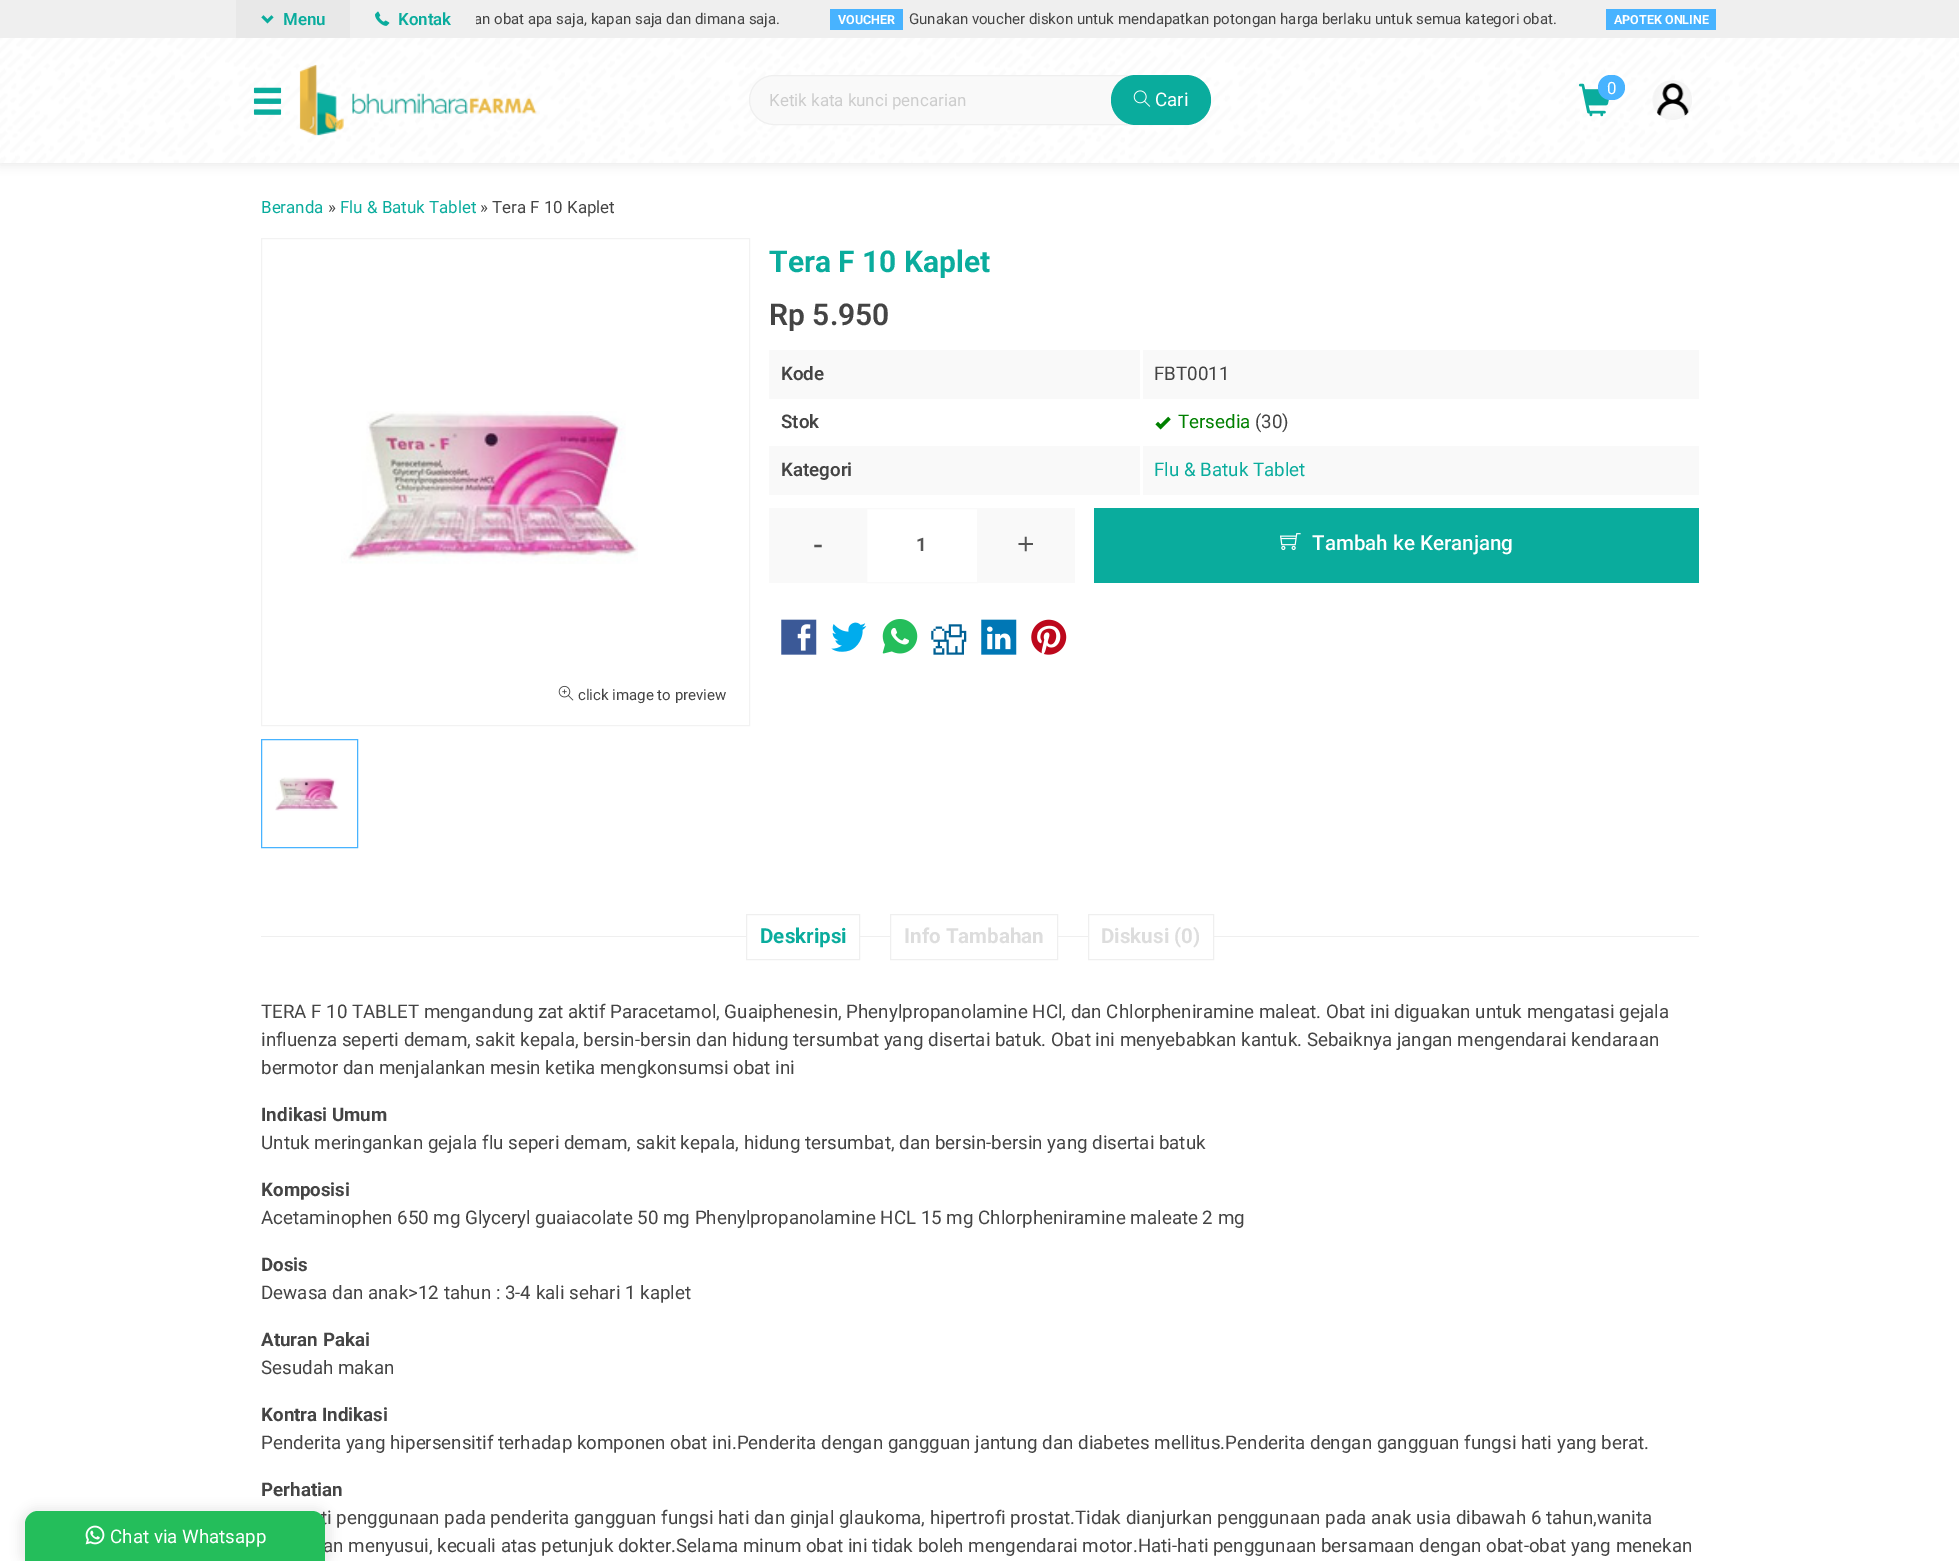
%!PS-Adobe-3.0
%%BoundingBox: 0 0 1959 1561
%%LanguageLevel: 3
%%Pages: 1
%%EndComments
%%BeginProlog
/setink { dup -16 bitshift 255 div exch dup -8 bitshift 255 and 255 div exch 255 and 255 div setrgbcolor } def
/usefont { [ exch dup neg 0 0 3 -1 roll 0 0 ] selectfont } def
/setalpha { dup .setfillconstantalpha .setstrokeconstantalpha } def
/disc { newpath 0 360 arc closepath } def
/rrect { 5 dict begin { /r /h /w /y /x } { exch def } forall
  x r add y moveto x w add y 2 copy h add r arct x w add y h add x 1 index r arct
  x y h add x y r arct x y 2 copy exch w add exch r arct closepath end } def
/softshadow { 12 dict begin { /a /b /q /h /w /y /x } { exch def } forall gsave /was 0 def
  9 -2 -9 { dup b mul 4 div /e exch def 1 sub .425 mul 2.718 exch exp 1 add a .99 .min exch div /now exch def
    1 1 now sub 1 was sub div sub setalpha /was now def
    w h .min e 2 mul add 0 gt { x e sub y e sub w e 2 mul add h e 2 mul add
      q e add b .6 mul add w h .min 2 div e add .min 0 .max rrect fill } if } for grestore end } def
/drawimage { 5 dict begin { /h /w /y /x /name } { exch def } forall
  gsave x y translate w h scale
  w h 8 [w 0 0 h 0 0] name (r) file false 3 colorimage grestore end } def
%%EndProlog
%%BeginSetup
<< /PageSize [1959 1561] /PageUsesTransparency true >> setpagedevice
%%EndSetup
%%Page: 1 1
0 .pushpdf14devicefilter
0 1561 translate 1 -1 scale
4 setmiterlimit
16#FFFFFF setink
0 0 1959 1561 rectfill
16#333333 setink
18 1506 315 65 20 4 0.07 softshadow
/Roboto-Regular 18.75 usefont
16#444444 setink
321 1524 moveto (ti penggunaan pada penderita gangguan fungsi hati dan ginjal glaukoma, hipertrofi prostat.Tidak dianjurkan penggunaan pada anak usia dibawah 6 tahun,wanita) show
323 1552 moveto (an menyusui, kecuali atas petunjuk dokter.Selama minum obat ini tidak boleh mengendarai motor.Hati-hati penggunaan bersamaan dengan obat-obat yang menekan) show
16#24BE5B setink
38 1511 moveto 312 1511 lineto 319 1511 325 1517 325 1524 curveto 325 1561 lineto 25 1561 lineto 25 1524 lineto 25 1517 31 1511 38 1511 curveto closepath fill
(img1.raw) 85 1525 20 20 drawimage
16#FFFFFF setink
110 1543 moveto (Chat via Whatsapp) show
16#000000 setink
0 3 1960 162 0 5 0.08 softshadow
16#EFEFEF setink
0 0 1959 38 rectfill
/Roboto-Regular 15 usefont
16#444444 setink
474 24 moveto (an obat apa saja, kapan saja dan dimana saja.) show
16#EFEFEF setink
474 16 2 8 rectfill
16#E8E8E8 setink
236 0 114 38 rectfill
(img2.raw) 261 15 13 9 drawimage
/Roboto-SemiBold 16.9 usefont
16#0AAC9D setink
283 25 moveto (Menu) show
(img3.raw) 375 11 15 15 drawimage
398 25 moveto (Kontak) show
16#48B3FF setink
830 9 73 21 rectfill
/Roboto-Bold 12.5 usefont
16#FFFFFF setink
838 24 moveto (VOUCHER) show
/Roboto-Regular 15 usefont
16#444444 setink
909 24 moveto (Gunakan voucher diskon untuk mendapatkan potongan harga berlaku untuk semua kategori obat.) show
16#48B3FF setink
1606 9 110 21 rectfill
/Roboto-Bold 12.5 usefont
16#FFFFFF setink
1614 24 moveto (APOTEK ONLINE) show
(img4.raw) 0 38 1959 125 drawimage
(img5.raw) 253 87 29 28 drawimage
(img6.raw) 299 64 238 72 drawimage
(img7.raw) 1578 83 31 34 drawimage
16#48B3FF setink
1598 75 27 25 12.5 rrect fill
/Roboto-Regular 16.9 usefont
16#FFFFFF setink
1607 94 moveto (0) show
1673 100 20 disc fill
(img8.raw) 1652 80 40 40 drawimage
16#F9F9F9 setink
749.5 75.5 461 49 24.5 rrect gsave fill grestore
16#EFEFEF setink
stroke
16#CCCCCC setink
769 106 moveto (Ketik kata kunci pencarian) show
16#0AAC9D setink
1111 75 100 50 25 rrect fill
(img9.raw) 1133 90 18 17 drawimage
/Roboto-Regular 18.75 usefont
16#FFFFFF setink
1155 106 moveto (Cari) show
/Roboto-Regular 16.9 usefont
16#0AAC9D setink
261 213 moveto (Beranda) show
16#444444 setink
328 213 moveto (») show
16#0AAC9D setink
340 213 moveto (Flu & Batuk Tablet) show
16#444444 setink
480 213 moveto (» Tera F 10 Kaplet) show
/Roboto-Bold 30 usefont
16#0AAC9D setink
769 272 moveto (Tera F 10 Kaplet) show
/Roboto-SemiBold 30 usefont
16#444444 setink
769 325 moveto (Rp 5.950) show
16#F9F9F9 setink
769 350 930 49 rectfill
/Roboto-SemiBold 18.75 usefont
16#444444 setink
781 380 moveto (Kode) show
/Roboto-Regular 18.75 usefont
1154 380 moveto (FBT0011) show
16#FFFFFF setink
1140 349 3 51 rectfill
/Roboto-SemiBold 18.75 usefont
16#444444 setink
781 428 moveto (Stok) show
(img10.raw) 1155 416 16 14 drawimage
/Roboto-Regular 18.75 usefont
16#008000 setink
1178 428 moveto (Tersedia) show
16#444444 setink
1255 428 moveto (\(30\)) show
16#F9F9F9 setink
769 446 930 49 rectfill
16#FFFFFF setink
1140 445 3 51 rectfill
/Roboto-SemiBold 18.75 usefont
16#444444 setink
781 476 moveto (Kategori) show
/Roboto-Regular 18.75 usefont
16#0AAC9D setink
1154 476 moveto (Flu & Batuk Tablet) show
16#F9F9F9 setink
769 508 97 75 rectfill
/LiberationSans-Regular 30 usefont
16#555555 setink
813 554 moveto (-) show
16#F9F9F9 setink
866.5 508.5 111 74 rectstroke
/Roboto-Bold 18.75 usefont
16#555555 setink
916 551 moveto (1) show
16#F9F9F9 setink
978 508 97 75 rectfill
/LiberationSans-Regular 30 usefont
16#555555 setink
1017 554 moveto (+) show
16#0AAC9D setink
1094 508 605 75 rectfill
(img11.raw) 1280 533 21 18 drawimage
/Roboto-Medium 20.6 usefont
16#FFFFFF setink
1312 550 moveto (Tambah ke Keranjang) show
(img12.raw) 781 619 36 36 drawimage
(img13.raw) 831 622 36 30 drawimage
(img14.raw) 882 619 36 35 drawimage
(img15.raw) 931 624 36 31 drawimage
(img16.raw) 981 619 36 36 drawimage
(img17.raw) 1031 619 36 36 drawimage
16#F2F2F2 setink
261.5 238.5 488 487 rectstroke
(img18.raw) 341 411 297 153 drawimage
(img19.raw) 558 685 16 16 drawimage
/Roboto-Regular 15 usefont
16#444444 setink
578 700 moveto (click image to preview) show
16#48B3FF setink
261.5 739.5 96 108 rectstroke
(img20.raw) 275 777 64 34 drawimage
16#EFEFEF setink
261 936 1438 1 rectfill
16#FFFFFF setink
747 936 112 1 rectfill
16#EFEFEF setink
746.5 914.5 113 45 rectstroke
/Roboto-Bold 20.6 usefont
16#0AAC9D setink
760 943 moveto (Deskripsi) show
16#FFFFFF setink
891 936 166 1 rectfill
16#EFEFEF setink
890.5 914.5 167 45 rectstroke
16#DDDDDD setink
904 943 moveto (Info Tambahan) show
16#FFFFFF setink
1089 936 124 1 rectfill
16#EFEFEF setink
1088.5 914.5 125 45 rectstroke
16#DDDDDD setink
1101 943 moveto (Diskusi \(0\)) show
/Roboto-Regular 18.75 usefont
16#444444 setink
[
    [(TERA F 10 TABLET mengandung zat aktif Paracetamol, Guaiphenesin, Phenylpropanolamine HCl, dan Chlorpheniramine maleat. Obat ini diguakan untuk mengatasi gejala) 261 1018]
    [(influenza seperti demam, sakit kepala, bersin-bersin dan hidung tersumbat yang disertai batuk. Obat ini menyebabkan kantuk. Sebaiknya jangan mengendarai kendaraan) 261 1046]
    [(bermotor dan menjalankan mesin ketika mengkonsumsi obat ini) 261 1074]
] { aload pop moveto show } forall
/Roboto-Bold 18.75 usefont
261 1121 moveto (Indikasi Umum) show
/Roboto-Regular 18.75 usefont
261 1149 moveto (Untuk meringankan gejala flu seperi demam, sakit kepala, hidung tersumbat, dan bersin-bersin yang disertai batuk) show
/Roboto-Bold 18.75 usefont
261 1196 moveto (Komposisi) show
/Roboto-Regular 18.75 usefont
261 1224 moveto (Acetaminophen 650 mg Glyceryl guaiacolate 50 mg Phenylpropanolamine HCL 15 mg Chlorpheniramine maleate 2 mg) show
/Roboto-Bold 18.75 usefont
261 1271 moveto (Dosis) show
/Roboto-Regular 18.75 usefont
261 1299 moveto (Dewasa dan anak>12 tahun : 3-4 kali sehari 1 kaplet) show
/Roboto-Bold 18.75 usefont
261 1346 moveto (Aturan Pakai) show
/Roboto-Regular 18.75 usefont
261 1374 moveto (Sesudah makan) show
/Roboto-Bold 18.75 usefont
261 1421 moveto (Kontra Indikasi) show
/Roboto-Regular 18.75 usefont
261 1449 moveto (Penderita yang hipersensitif terhadap komponen obat ini.Penderita dengan gangguan jantung dan diabetes mellitus.Penderita dengan gangguan fungsi hati yang berat.) show
/Roboto-Bold 18.75 usefont
261 1496 moveto (Perhatian) show
.poppdf14devicefilter showpage
%%EOF
